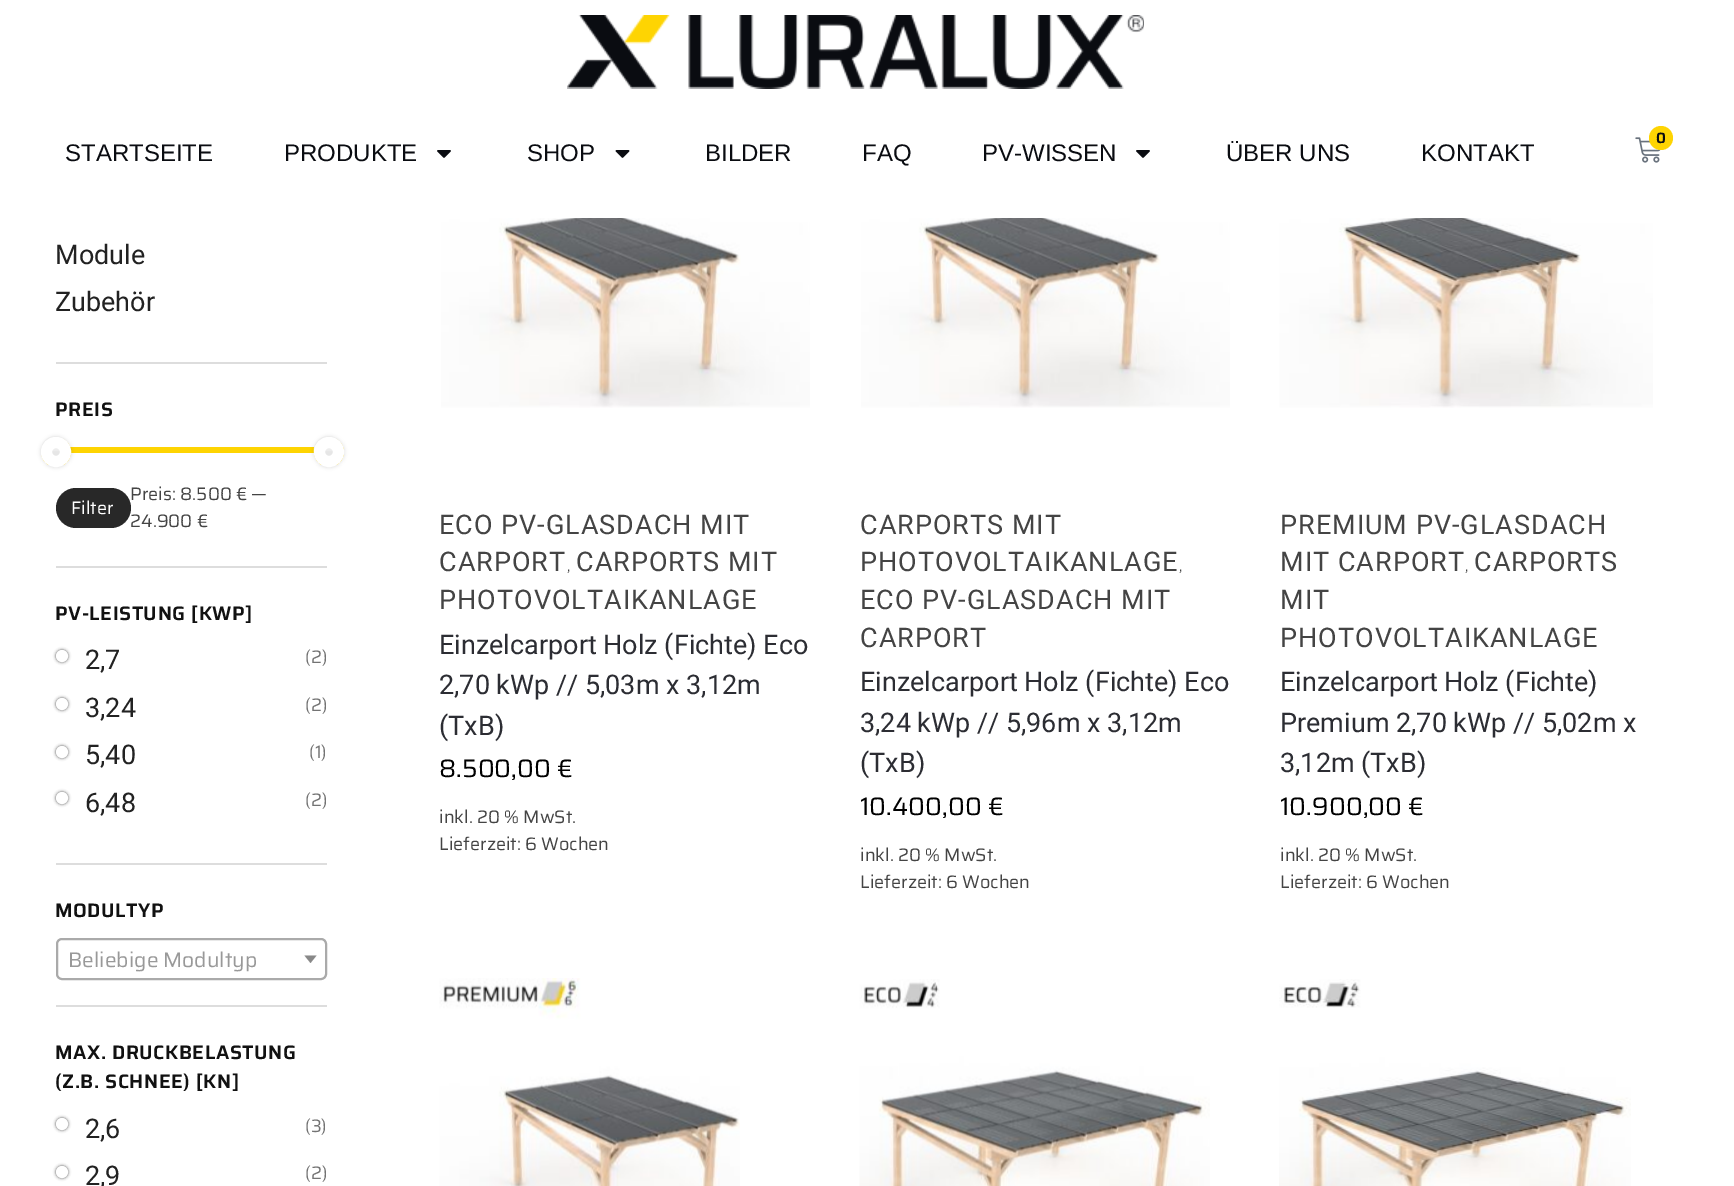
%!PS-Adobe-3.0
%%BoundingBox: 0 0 1734 1186
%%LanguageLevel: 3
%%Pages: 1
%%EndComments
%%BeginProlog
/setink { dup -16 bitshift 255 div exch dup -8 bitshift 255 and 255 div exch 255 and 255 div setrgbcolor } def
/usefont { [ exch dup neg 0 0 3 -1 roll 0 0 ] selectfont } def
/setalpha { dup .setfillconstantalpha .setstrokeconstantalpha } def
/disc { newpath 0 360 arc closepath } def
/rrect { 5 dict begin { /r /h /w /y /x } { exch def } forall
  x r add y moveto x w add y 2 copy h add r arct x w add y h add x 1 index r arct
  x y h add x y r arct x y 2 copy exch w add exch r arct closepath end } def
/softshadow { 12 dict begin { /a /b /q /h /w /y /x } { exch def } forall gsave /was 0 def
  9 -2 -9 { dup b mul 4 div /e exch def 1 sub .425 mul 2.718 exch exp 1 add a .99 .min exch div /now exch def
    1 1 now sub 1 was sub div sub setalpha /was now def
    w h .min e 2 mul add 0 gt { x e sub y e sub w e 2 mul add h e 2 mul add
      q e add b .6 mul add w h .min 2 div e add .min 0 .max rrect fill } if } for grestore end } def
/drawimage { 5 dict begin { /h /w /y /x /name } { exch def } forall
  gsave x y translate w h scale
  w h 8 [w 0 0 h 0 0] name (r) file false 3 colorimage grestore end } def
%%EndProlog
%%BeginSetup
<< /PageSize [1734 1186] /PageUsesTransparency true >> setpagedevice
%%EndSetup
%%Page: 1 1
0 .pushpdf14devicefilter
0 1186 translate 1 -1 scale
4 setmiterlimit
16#FFFFFF setink
0 0 1734 1186 rectfill
(img1.raw) 567 15 577 74 drawimage
(img2.raw) 1635 137 26 26 drawimage
16#FED402 setink
1661 138 12 disc fill
/Saira-SemiBold 15 usefont
16#0A0C11 setink
1656 143 moveto (0) show
/LiberationSans-Regular 24 usefont
65 161 moveto (STARTSEITE) show
284 161 moveto (PRODUKTE) show
(img3.raw) 437 150 14 8 drawimage
527 161 moveto (SHOP) show
(img4.raw) 615 150 15 8 drawimage
[
    [(BILDER) 705 161]
    [(FAQ) 862 161]
    [(PV-WISSEN) 982 161]
] { aload pop moveto show } forall
(img3.raw) 1136 150 14 8 drawimage
1226 161 moveto (ÜBER UNS) show
1421 161 moveto (KONTAKT) show
16#DDDDDD setink
56 362 271 2 rectfill
/Roboto-Regular 27 usefont
16#222222 setink
55 264 moveto (Module) show
55 311 moveto (Zubehör) show
16#DDDDDD setink
56 566 271 2 rectfill
/Saira-SemiBold 19.5 usefont
16#111111 setink
55 416 moveto 0.5 0 (PREIS) ashow
16#FED402 setink
70 447 245 6 rectfill
16#000000 setink
41 437 30 30 15 2 0.15 softshadow
(img5.raw) 41 436 30 29 drawimage
16#FFFFFF setink
11 setlinewidth
56 452 9.5 disc stroke
16#000000 setink
314 437 30 30 15 2 0.15 softshadow
(img6.raw) 313 436 31 29 drawimage
16#FFFFFF setink
329 452 9.5 disc stroke
16#282828 setink
56 488 75 40 20 rrect fill
/Saira-Regular 18 usefont
16#FFFFFF setink
71 514 moveto (Filter) show
16#444444 setink
130 500 moveto (Preis: 8.500 € —) show
130 527 moveto (24.900 €) show
16#DDDDDD setink
56 863 271 2 rectfill
/Saira-SemiBold 19.5 usefont
16#111111 setink
55 620 moveto 0.5 0 (PV-LEISTUNG [KWP]) ashow
16#555555 setink
56 650 12 12 6 1.5 1 softshadow
16#FFFFFF setink
62 656 4.5 disc gsave fill grestore
3 setlinewidth
stroke
/Roboto-Regular 27 usefont
16#222222 setink
85 669 moveto (2,7) show
/Saira-Regular 18 usefont
16#737373 setink
305 663 moveto (\(2\)) show
16#555555 setink
56 698 12 12 6 1.5 1 softshadow
16#FFFFFF setink
62 704 4.5 disc gsave fill grestore
stroke
/Roboto-Regular 27 usefont
16#222222 setink
85 717 moveto (3,24) show
/Saira-Regular 18 usefont
16#737373 setink
305 711 moveto (\(2\)) show
16#555555 setink
56 746 12 12 6 1.5 1 softshadow
16#FFFFFF setink
62 752 4.5 disc gsave fill grestore
stroke
/Roboto-Regular 27 usefont
16#222222 setink
85 764 moveto (5,40) show
/Saira-Regular 18 usefont
16#737373 setink
309 758 moveto (\(1\)) show
16#555555 setink
56 792 12 12 6 1.5 1 softshadow
16#FFFFFF setink
62 798 4.5 disc gsave fill grestore
stroke
/Roboto-Regular 27 usefont
16#222222 setink
85 812 moveto (6,48) show
/Saira-Regular 18 usefont
16#737373 setink
305 806 moveto (\(2\)) show
16#DDDDDD setink
56 1005 271 2 rectfill
/Saira-SemiBold 19.5 usefont
16#111111 setink
55 917 moveto 0.5 0 (MODULTYP) ashow
16#AAAAAA setink
2 setlinewidth
57 939 269 40 5 rrect stroke
/Saira-Regular 21 usefont
16#999999 setink
68 967 moveto (Beliebige Modultyp) show
16#888888 setink
304.5 955.5 moveto 316.5 955.5 lineto 310.5 963 lineto closepath fill
/Saira-SemiBold 19.5 usefont
16#111111 setink
55 1059 moveto 0.5 0 (MAX. DRUCKBELASTUNG) ashow
55 1088 moveto 0.5 0 (\(Z.B. SCHNEE\) [KN]) ashow
16#555555 setink
56 1118 12 12 6 1.5 1 softshadow
16#FFFFFF setink
62 1124 4.5 disc gsave fill grestore
3 setlinewidth
stroke
/Roboto-Regular 27 usefont
16#222222 setink
85 1138 moveto (2,6) show
/Saira-Regular 18 usefont
16#737373 setink
305 1132 moveto (\(3\)) show
16#555555 setink
56 1166 12 12 6 1.5 1 softshadow
16#FFFFFF setink
62 1172 4.5 disc gsave fill grestore
stroke
/Roboto-Regular 27 usefont
16#222222 setink
85 1185 moveto (2,9) show
/Saira-Regular 18 usefont
16#737373 setink
305 1179 moveto (\(2\)) show
(img7.raw) 441 218 369 190 drawimage
/Roboto-Regular 27 usefont
16#444444 setink
439 534 moveto 1 0 (ECO PV-GLASDACH MIT) ashow
439 571 moveto 1 0 (CARPORT) ashow
/Saira-Regular 14 usefont
567 571 moveto 1 0 (,) ashow
/Roboto-Regular 27 usefont
576 571 moveto 1 0 (CARPORTS MIT) ashow
439 609 moveto 1 0 (PHOTOVOLTAIKANLAGE) ashow
16#2C2D33 setink
[
    [(Einzelcarport Holz \(Fichte\) Eco) 439 654]
    [(2,70 kWp // 5,03m x 3,12m) 439 694]
    [(\(TxB\)) 439 735]
] { aload pop moveto show } forall
/Saira-Regular 25.25 usefont
16#000000 setink
439 777 moveto (8.500,00 €) show
/Saira-Regular 18 usefont
16#444444 setink
439 823 moveto (inkl. 20 % MwSt.) show
439 850 moveto (Lieferzeit: 6 Wochen) show
(img8.raw) 861 218 369 190 drawimage
/Roboto-Regular 27 usefont
860 534 moveto 1 0 (CARPORTS MIT) ashow
860 571 moveto 1 0 (PHOTOVOLTAIKANLAGE) ashow
/Saira-Regular 14 usefont
1179 571 moveto 1 0 (,) ashow
/Roboto-Regular 27 usefont
860 609 moveto 1 0 (ECO PV-GLASDACH MIT) ashow
860 647 moveto 1 0 (CARPORT) ashow
16#2C2D33 setink
[
    [(Einzelcarport Holz \(Fichte\) Eco) 860 691]
    [(3,24 kWp // 5,96m x 3,12m) 860 732]
    [(\(TxB\)) 860 772]
] { aload pop moveto show } forall
/Saira-Regular 25.25 usefont
16#000000 setink
860 815 moveto (10.400,00 €) show
/Saira-Regular 18 usefont
16#444444 setink
860 861 moveto (inkl. 20 % MwSt.) show
860 888 moveto (Lieferzeit: 6 Wochen) show
(img9.raw) 1279 218 374 190 drawimage
/Roboto-Regular 27 usefont
1280 534 moveto 1 0 (PREMIUM PV-GLASDACH) ashow
1280 571 moveto 1 0 (MIT CARPORT) ashow
/Saira-Regular 14 usefont
1465 571 moveto 1 0 (,) ashow
/Roboto-Regular 27 usefont
1474 571 moveto 1 0 (CARPORTS) ashow
1280 609 moveto 1 0 (MIT) ashow
1280 647 moveto 1 0 (PHOTOVOLTAIKANLAGE) ashow
16#2C2D33 setink
[
    [(Einzelcarport Holz \(Fichte\)) 1280 691]
    [(Premium 2,70 kWp // 5,02m x) 1280 732]
    [(3,12m \(TxB\)) 1280 772]
] { aload pop moveto show } forall
/Saira-Regular 25.25 usefont
16#000000 setink
1280 815 moveto (10.900,00 €) show
/Saira-Regular 18 usefont
16#444444 setink
1280 861 moveto (inkl. 20 % MwSt.) show
1280 888 moveto (Lieferzeit: 6 Wochen) show
(img10.raw) 439 978 301 208 drawimage
(img11.raw) 859 979 351 207 drawimage
(img12.raw) 1279 979 352 207 drawimage
.poppdf14devicefilter showpage
%%EOF
